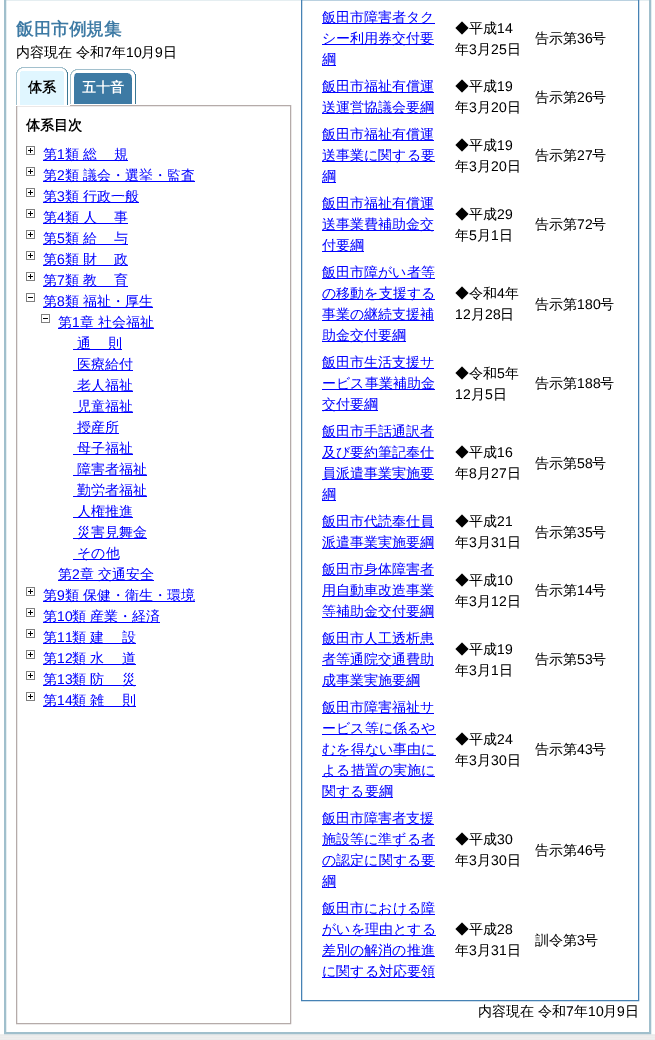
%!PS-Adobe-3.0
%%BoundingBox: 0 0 655 1040
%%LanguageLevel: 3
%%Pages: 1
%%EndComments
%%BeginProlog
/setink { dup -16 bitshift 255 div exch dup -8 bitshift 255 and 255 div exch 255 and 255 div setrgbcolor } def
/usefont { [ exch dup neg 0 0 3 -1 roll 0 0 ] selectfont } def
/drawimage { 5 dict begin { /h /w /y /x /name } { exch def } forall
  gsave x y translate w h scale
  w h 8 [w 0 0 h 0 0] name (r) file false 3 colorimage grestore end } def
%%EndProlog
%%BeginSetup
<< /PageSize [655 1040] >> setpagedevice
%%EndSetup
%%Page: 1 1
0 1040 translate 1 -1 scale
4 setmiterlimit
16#FFFFFF setink
0 0 655 1040 rectfill
(img1.raw) 0 1034 655 6 drawimage
16#A0BFCC setink
2 setlinewidth
5 -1 645 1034 rectstroke
/WenQuanYiZenHei-Bold 17.5 usefont
16#3D7AA4 setink
16 35 moveto (飯田市例規集) show
/WenQuanYiZenHei-Medium 14 usefont
16#000000 setink
16 57 moveto (内容現在 令和) show
/LiberationSans-Regular 14 usefont
104 57 moveto (7) show
/WenQuanYiZenHei-Medium 14 usefont
112 57 moveto (年) show
/LiberationSans-Regular 14 usefont
126 57 moveto (10) show
/WenQuanYiZenHei-Medium 14 usefont
141 57 moveto (月) show
/LiberationSans-Regular 14 usefont
155 57 moveto (9) show
/WenQuanYiZenHei-Medium 14 usefont
163 57 moveto (日) show
16#B5ABA9 setink
1 setlinewidth
16.5 105.5 274 918 rectstroke
16#FFFFFF setink
16 105 54 1 rectfill
(img2.raw) 16 67 6 38 drawimage
(img3.raw) 22 67 46 38 drawimage
/WenQuanYiZenHei-Bold 14 usefont
16#000000 setink
28 92 moveto (体系) show
(img4.raw) 70 67 6 37 drawimage
(img5.raw) 76 67 60 37 drawimage
16#FFFFFF setink
82 92 moveto (五十音) show
16#000000 setink
26 130 moveto (体系目次) show
(img6.raw) 26 146 9 9 drawimage
16#0000FF setink
43 160 85 1 rectfill
/WenQuanYiZenHei-Medium 14 usefont
43 159 moveto (第) show
/LiberationSans-Regular 14 usefont
57 159 moveto (1) show
/WenQuanYiZenHei-Medium 14 usefont
65 159 moveto (類) show
83 159 moveto 18 0 (総) ashow
114 159 moveto (規) show
(img6.raw) 26 167 9 9 drawimage
43 181 152 1 rectfill
43 180 moveto (第) show
/LiberationSans-Regular 14 usefont
57 180 moveto (2) show
/WenQuanYiZenHei-Medium 14 usefont
65 180 moveto (類 議会・選挙・監査) show
(img6.raw) 26 188 9 9 drawimage
43 202 96 1 rectfill
43 201 moveto (第) show
/LiberationSans-Regular 14 usefont
57 201 moveto (3) show
/WenQuanYiZenHei-Medium 14 usefont
65 201 moveto (類 行政一般) show
(img6.raw) 26 209 9 9 drawimage
43 223 85 1 rectfill
43 222 moveto (第) show
/LiberationSans-Regular 14 usefont
57 222 moveto (4) show
/WenQuanYiZenHei-Medium 14 usefont
65 222 moveto (類) show
83 222 moveto 18 0 (人) ashow
114 222 moveto (事) show
(img6.raw) 26 230 9 9 drawimage
43 244 85 1 rectfill
43 243 moveto (第) show
/LiberationSans-Regular 14 usefont
57 243 moveto (5) show
/WenQuanYiZenHei-Medium 14 usefont
65 243 moveto (類) show
83 243 moveto 18 0 (給) ashow
114 243 moveto (与) show
(img6.raw) 26 251 9 9 drawimage
43 265 85 1 rectfill
43 264 moveto (第) show
/LiberationSans-Regular 14 usefont
57 264 moveto (6) show
/WenQuanYiZenHei-Medium 14 usefont
65 264 moveto (類) show
83 264 moveto 18 0 (財) ashow
114 264 moveto (政) show
(img6.raw) 26 272 9 9 drawimage
43 286 85 1 rectfill
43 285 moveto (第) show
/LiberationSans-Regular 14 usefont
57 285 moveto (7) show
/WenQuanYiZenHei-Medium 14 usefont
65 285 moveto (類) show
83 285 moveto 18 0 (教) ashow
114 285 moveto (育) show
(img7.raw) 26 293 9 9 drawimage
43 307 110 1 rectfill
43 306 moveto (第) show
/LiberationSans-Regular 14 usefont
57 306 moveto (8) show
/WenQuanYiZenHei-Medium 14 usefont
65 306 moveto (類 福祉・厚生) show
(img7.raw) 41 314 9 9 drawimage
58 328 96 1 rectfill
58 327 moveto (第) show
/LiberationSans-Regular 14 usefont
72 327 moveto (1) show
/WenQuanYiZenHei-Medium 14 usefont
80 327 moveto (章 社会福祉) show
73 349 49 1 rectfill
77 348 moveto 18 0 (通) ashow
108 348 moveto (則) show
73 370 60 1 rectfill
77 369 moveto (医療給付) show
73 391 60 1 rectfill
77 390 moveto (老人福祉) show
73 412 60 1 rectfill
77 411 moveto (児童福祉) show
73 433 46 1 rectfill
77 432 moveto (授産所) show
73 454 60 1 rectfill
77 453 moveto (母子福祉) show
73 475 74 1 rectfill
77 474 moveto (障害者福祉) show
73 496 74 1 rectfill
77 495 moveto (勤労者福祉) show
73 517 60 1 rectfill
77 516 moveto (人権推進) show
73 538 74 1 rectfill
77 537 moveto (災害見舞金) show
73 559 46 1 rectfill
77 558 moveto (その他) show
58 580 96 1 rectfill
58 579 moveto (第) show
/LiberationSans-Regular 14 usefont
72 579 moveto (2) show
/WenQuanYiZenHei-Medium 14 usefont
80 579 moveto (章 交通安全) show
(img6.raw) 26 587 9 9 drawimage
43 601 152 1 rectfill
43 600 moveto (第) show
/LiberationSans-Regular 14 usefont
57 600 moveto (9) show
/WenQuanYiZenHei-Medium 14 usefont
65 600 moveto (類 保健・衛生・環境) show
(img6.raw) 26 608 9 9 drawimage
43 622 117 1 rectfill
43 621 moveto (第) show
/LiberationSans-Regular 14 usefont
57 621 moveto (10) show
/WenQuanYiZenHei-Medium 14 usefont
72 621 moveto (類 産業・経済) show
(img6.raw) 26 629 9 9 drawimage
43 643 93 1 rectfill
43 642 moveto (第) show
/LiberationSans-Regular 14 usefont
57 642 moveto (11) show
/WenQuanYiZenHei-Medium 14 usefont
72 642 moveto (類) show
90 642 moveto 18 0 (建) ashow
122 642 moveto (設) show
(img6.raw) 26 650 9 9 drawimage
43 664 93 1 rectfill
43 663 moveto (第) show
/LiberationSans-Regular 14 usefont
57 663 moveto (12) show
/WenQuanYiZenHei-Medium 14 usefont
72 663 moveto (類) show
90 663 moveto 18 0 (水) ashow
122 663 moveto (道) show
(img6.raw) 26 671 9 9 drawimage
43 685 93 1 rectfill
43 684 moveto (第) show
/LiberationSans-Regular 14 usefont
57 684 moveto (13) show
/WenQuanYiZenHei-Medium 14 usefont
72 684 moveto (類) show
90 684 moveto 18 0 (防) ashow
122 684 moveto (災) show
(img6.raw) 26 692 9 9 drawimage
43 706 93 1 rectfill
43 705 moveto (第) show
/LiberationSans-Regular 14 usefont
57 705 moveto (14) show
/WenQuanYiZenHei-Medium 14 usefont
72 705 moveto (類) show
90 705 moveto 18 0 (雑) ashow
122 705 moveto (則) show
16#4682B4 setink
301.5 -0.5 337 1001 rectstroke
16#0000FF setink
322 23 113 1 rectfill
322 22 moveto (飯田市障害者タク) show
322 44 112 1 rectfill
322 43 moveto (シー利用券交付要) show
322 65 14 1 rectfill
322 64 moveto (綱) show
16#000000 setink
455 33 moveto (◆平成) show
/LiberationSans-Regular 14 usefont
497 33 moveto (14) show
/WenQuanYiZenHei-Medium 14 usefont
455 54 moveto (年) show
/LiberationSans-Regular 14 usefont
469 54 moveto (3) show
/WenQuanYiZenHei-Medium 14 usefont
477 54 moveto (月) show
/LiberationSans-Regular 14 usefont
491 54 moveto (25) show
/WenQuanYiZenHei-Medium 14 usefont
507 54 moveto (日) show
535 43 moveto (告示第) show
/LiberationSans-Regular 14 usefont
577 43 moveto (36) show
/WenQuanYiZenHei-Medium 14 usefont
592 43 moveto (号) show
16#0000FF setink
322 92 112 1 rectfill
322 91 moveto (飯田市福祉有償運) show
322 113 112 1 rectfill
322 112 moveto (送運営協議会要綱) show
16#000000 setink
455 91 moveto (◆平成) show
/LiberationSans-Regular 14 usefont
497 91 moveto (19) show
/WenQuanYiZenHei-Medium 14 usefont
455 112 moveto (年) show
/LiberationSans-Regular 14 usefont
469 112 moveto (3) show
/WenQuanYiZenHei-Medium 14 usefont
477 112 moveto (月) show
/LiberationSans-Regular 14 usefont
491 112 moveto (20) show
/WenQuanYiZenHei-Medium 14 usefont
507 112 moveto (日) show
535 102 moveto (告示第) show
/LiberationSans-Regular 14 usefont
577 102 moveto (26) show
/WenQuanYiZenHei-Medium 14 usefont
592 102 moveto (号) show
16#0000FF setink
322 140 112 1 rectfill
322 139 moveto (飯田市福祉有償運) show
322 161 113 1 rectfill
322 160 moveto (送事業に関する要) show
322 182 14 1 rectfill
322 181 moveto (綱) show
16#000000 setink
455 150 moveto (◆平成) show
/LiberationSans-Regular 14 usefont
497 150 moveto (19) show
/WenQuanYiZenHei-Medium 14 usefont
455 171 moveto (年) show
/LiberationSans-Regular 14 usefont
469 171 moveto (3) show
/WenQuanYiZenHei-Medium 14 usefont
477 171 moveto (月) show
/LiberationSans-Regular 14 usefont
491 171 moveto (20) show
/WenQuanYiZenHei-Medium 14 usefont
507 171 moveto (日) show
535 160 moveto (告示第) show
/LiberationSans-Regular 14 usefont
577 160 moveto (27) show
/WenQuanYiZenHei-Medium 14 usefont
592 160 moveto (号) show
16#0000FF setink
322 209 112 1 rectfill
322 208 moveto (飯田市福祉有償運) show
322 230 112 1 rectfill
322 229 moveto (送事業費補助金交) show
322 251 42 1 rectfill
322 250 moveto (付要綱) show
16#000000 setink
455 219 moveto (◆平成) show
/LiberationSans-Regular 14 usefont
497 219 moveto (29) show
/WenQuanYiZenHei-Medium 14 usefont
455 240 moveto (年) show
/LiberationSans-Regular 14 usefont
469 240 moveto (5) show
/WenQuanYiZenHei-Medium 14 usefont
477 240 moveto (月) show
/LiberationSans-Regular 14 usefont
491 240 moveto (1) show
/WenQuanYiZenHei-Medium 14 usefont
499 240 moveto (日) show
535 229 moveto (告示第) show
/LiberationSans-Regular 14 usefont
577 229 moveto (72) show
/WenQuanYiZenHei-Medium 14 usefont
592 229 moveto (号) show
16#0000FF setink
322 278 113 1 rectfill
322 277 moveto (飯田市障がい者等) show
322 299 113 1 rectfill
322 298 moveto (の移動を支援する) show
322 320 112 1 rectfill
322 319 moveto (事業の継続支援補) show
322 341 84 1 rectfill
322 340 moveto (助金交付要綱) show
16#000000 setink
455 298 moveto (◆令和) show
/LiberationSans-Regular 14 usefont
497 298 moveto (4) show
/WenQuanYiZenHei-Medium 14 usefont
505 298 moveto (年) show
/LiberationSans-Regular 14 usefont
455 319 moveto (12) show
/WenQuanYiZenHei-Medium 14 usefont
471 319 moveto (月) show
/LiberationSans-Regular 14 usefont
485 319 moveto (28) show
/WenQuanYiZenHei-Medium 14 usefont
500 319 moveto (日) show
535 309 moveto (告示第) show
/LiberationSans-Regular 14 usefont
577 309 moveto (180) show
/WenQuanYiZenHei-Medium 14 usefont
600 309 moveto (号) show
16#0000FF setink
322 368 112 1 rectfill
322 367 moveto (飯田市生活支援サ) show
322 389 113 1 rectfill
322 388 moveto (ービス事業補助金) show
322 410 56 1 rectfill
322 409 moveto (交付要綱) show
16#000000 setink
455 378 moveto (◆令和) show
/LiberationSans-Regular 14 usefont
497 378 moveto (5) show
/WenQuanYiZenHei-Medium 14 usefont
505 378 moveto (年) show
/LiberationSans-Regular 14 usefont
455 399 moveto (12) show
/WenQuanYiZenHei-Medium 14 usefont
471 399 moveto (月) show
/LiberationSans-Regular 14 usefont
485 399 moveto (5) show
/WenQuanYiZenHei-Medium 14 usefont
493 399 moveto (日) show
535 388 moveto (告示第) show
/LiberationSans-Regular 14 usefont
577 388 moveto (188) show
/WenQuanYiZenHei-Medium 14 usefont
600 388 moveto (号) show
16#0000FF setink
322 437 112 1 rectfill
322 436 moveto (飯田市手話通訳者) show
322 458 112 1 rectfill
322 457 moveto (及び要約筆記奉仕) show
322 479 112 1 rectfill
322 478 moveto (員派遣事業実施要) show
322 500 14 1 rectfill
322 499 moveto (綱) show
16#000000 setink
455 457 moveto (◆平成) show
/LiberationSans-Regular 14 usefont
497 457 moveto (16) show
/WenQuanYiZenHei-Medium 14 usefont
455 478 moveto (年) show
/LiberationSans-Regular 14 usefont
469 478 moveto (8) show
/WenQuanYiZenHei-Medium 14 usefont
477 478 moveto (月) show
/LiberationSans-Regular 14 usefont
491 478 moveto (27) show
/WenQuanYiZenHei-Medium 14 usefont
507 478 moveto (日) show
535 468 moveto (告示第) show
/LiberationSans-Regular 14 usefont
577 468 moveto (58) show
/WenQuanYiZenHei-Medium 14 usefont
592 468 moveto (号) show
16#0000FF setink
322 527 112 1 rectfill
322 526 moveto (飯田市代読奉仕員) show
322 548 112 1 rectfill
322 547 moveto (派遣事業実施要綱) show
16#000000 setink
455 526 moveto (◆平成) show
/LiberationSans-Regular 14 usefont
497 526 moveto (21) show
/WenQuanYiZenHei-Medium 14 usefont
455 547 moveto (年) show
/LiberationSans-Regular 14 usefont
469 547 moveto (3) show
/WenQuanYiZenHei-Medium 14 usefont
477 547 moveto (月) show
/LiberationSans-Regular 14 usefont
491 547 moveto (31) show
/WenQuanYiZenHei-Medium 14 usefont
507 547 moveto (日) show
535 537 moveto (告示第) show
/LiberationSans-Regular 14 usefont
577 537 moveto (35) show
/WenQuanYiZenHei-Medium 14 usefont
592 537 moveto (号) show
16#0000FF setink
322 575 112 1 rectfill
322 574 moveto (飯田市身体障害者) show
322 596 112 1 rectfill
322 595 moveto (用自動車改造事業) show
322 617 112 1 rectfill
322 616 moveto (等補助金交付要綱) show
16#000000 setink
455 585 moveto (◆平成) show
/LiberationSans-Regular 14 usefont
497 585 moveto (10) show
/WenQuanYiZenHei-Medium 14 usefont
455 606 moveto (年) show
/LiberationSans-Regular 14 usefont
469 606 moveto (3) show
/WenQuanYiZenHei-Medium 14 usefont
477 606 moveto (月) show
/LiberationSans-Regular 14 usefont
491 606 moveto (12) show
/WenQuanYiZenHei-Medium 14 usefont
507 606 moveto (日) show
535 595 moveto (告示第) show
/LiberationSans-Regular 14 usefont
577 595 moveto (14) show
/WenQuanYiZenHei-Medium 14 usefont
592 595 moveto (号) show
16#0000FF setink
322 644 112 1 rectfill
322 643 moveto (飯田市人工透析患) show
322 665 112 1 rectfill
322 664 moveto (者等通院交通費助) show
322 686 98 1 rectfill
322 685 moveto (成事業実施要綱) show
16#000000 setink
455 654 moveto (◆平成) show
/LiberationSans-Regular 14 usefont
497 654 moveto (19) show
/WenQuanYiZenHei-Medium 14 usefont
455 675 moveto (年) show
/LiberationSans-Regular 14 usefont
469 675 moveto (3) show
/WenQuanYiZenHei-Medium 14 usefont
477 675 moveto (月) show
/LiberationSans-Regular 14 usefont
491 675 moveto (1) show
/WenQuanYiZenHei-Medium 14 usefont
499 675 moveto (日) show
535 664 moveto (告示第) show
/LiberationSans-Regular 14 usefont
577 664 moveto (53) show
/WenQuanYiZenHei-Medium 14 usefont
592 664 moveto (号) show
16#0000FF setink
322 713 112 1 rectfill
322 712 moveto (飯田市障害福祉サ) show
322 734 114 1 rectfill
322 733 moveto (ービス等に係るや) show
322 755 114 1 rectfill
322 754 moveto (むを得ない事由に) show
322 776 113 1 rectfill
322 775 moveto (よる措置の実施に) show
322 797 71 1 rectfill
322 796 moveto (関する要綱) show
16#000000 setink
455 744 moveto (◆平成) show
/LiberationSans-Regular 14 usefont
497 744 moveto (24) show
/WenQuanYiZenHei-Medium 14 usefont
455 765 moveto (年) show
/LiberationSans-Regular 14 usefont
469 765 moveto (3) show
/WenQuanYiZenHei-Medium 14 usefont
477 765 moveto (月) show
/LiberationSans-Regular 14 usefont
491 765 moveto (30) show
/WenQuanYiZenHei-Medium 14 usefont
507 765 moveto (日) show
535 754 moveto (告示第) show
/LiberationSans-Regular 14 usefont
577 754 moveto (43) show
/WenQuanYiZenHei-Medium 14 usefont
592 754 moveto (号) show
16#0000FF setink
322 824 112 1 rectfill
322 823 moveto (飯田市障害者支援) show
322 845 113 1 rectfill
322 844 moveto (施設等に準ずる者) show
322 866 113 1 rectfill
322 865 moveto (の認定に関する要) show
322 887 14 1 rectfill
322 886 moveto (綱) show
16#000000 setink
455 844 moveto (◆平成) show
/LiberationSans-Regular 14 usefont
497 844 moveto (30) show
/WenQuanYiZenHei-Medium 14 usefont
455 865 moveto (年) show
/LiberationSans-Regular 14 usefont
469 865 moveto (3) show
/WenQuanYiZenHei-Medium 14 usefont
477 865 moveto (月) show
/LiberationSans-Regular 14 usefont
491 865 moveto (30) show
/WenQuanYiZenHei-Medium 14 usefont
507 865 moveto (日) show
535 855 moveto (告示第) show
/LiberationSans-Regular 14 usefont
577 855 moveto (46) show
/WenQuanYiZenHei-Medium 14 usefont
592 855 moveto (号) show
16#0000FF setink
322 914 113 1 rectfill
322 913 moveto (飯田市における障) show
322 935 114 1 rectfill
322 934 moveto (がいを理由とする) show
322 956 113 1 rectfill
322 955 moveto (差別の解消の推進) show
322 977 113 1 rectfill
322 976 moveto (に関する対応要領) show
16#000000 setink
455 934 moveto (◆平成) show
/LiberationSans-Regular 14 usefont
497 934 moveto (28) show
/WenQuanYiZenHei-Medium 14 usefont
455 955 moveto (年) show
/LiberationSans-Regular 14 usefont
469 955 moveto (3) show
/WenQuanYiZenHei-Medium 14 usefont
477 955 moveto (月) show
/LiberationSans-Regular 14 usefont
491 955 moveto (31) show
/WenQuanYiZenHei-Medium 14 usefont
507 955 moveto (日) show
535 945 moveto (訓令第) show
/LiberationSans-Regular 14 usefont
577 945 moveto (3) show
/WenQuanYiZenHei-Medium 14 usefont
584 945 moveto (号) show
478 1016 moveto (内容現在 令和) show
/LiberationSans-Regular 14 usefont
566 1016 moveto (7) show
/WenQuanYiZenHei-Medium 14 usefont
574 1016 moveto (年) show
/LiberationSans-Regular 14 usefont
588 1016 moveto (10) show
/WenQuanYiZenHei-Medium 14 usefont
603 1016 moveto (月) show
/LiberationSans-Regular 14 usefont
617 1016 moveto (9) show
/WenQuanYiZenHei-Medium 14 usefont
625 1016 moveto (日) show
showpage
%%EOF
